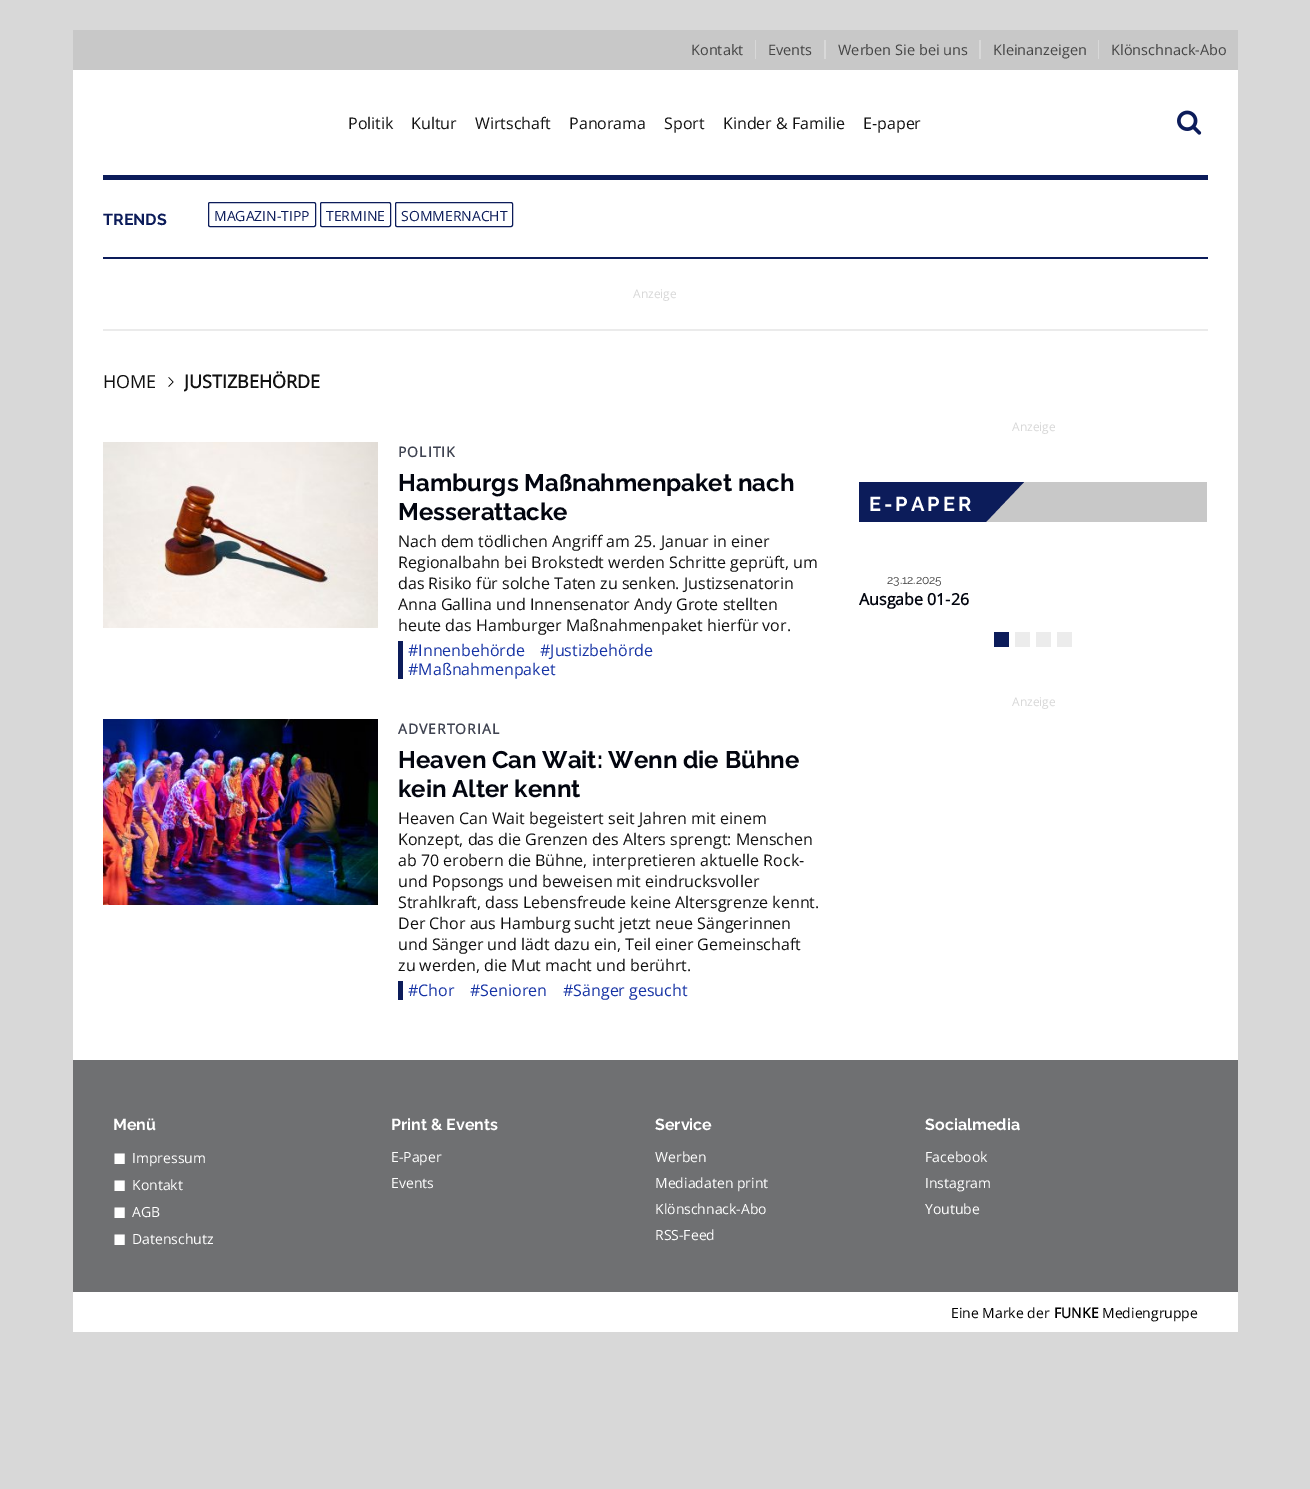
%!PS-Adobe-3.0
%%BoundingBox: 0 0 1310 1489
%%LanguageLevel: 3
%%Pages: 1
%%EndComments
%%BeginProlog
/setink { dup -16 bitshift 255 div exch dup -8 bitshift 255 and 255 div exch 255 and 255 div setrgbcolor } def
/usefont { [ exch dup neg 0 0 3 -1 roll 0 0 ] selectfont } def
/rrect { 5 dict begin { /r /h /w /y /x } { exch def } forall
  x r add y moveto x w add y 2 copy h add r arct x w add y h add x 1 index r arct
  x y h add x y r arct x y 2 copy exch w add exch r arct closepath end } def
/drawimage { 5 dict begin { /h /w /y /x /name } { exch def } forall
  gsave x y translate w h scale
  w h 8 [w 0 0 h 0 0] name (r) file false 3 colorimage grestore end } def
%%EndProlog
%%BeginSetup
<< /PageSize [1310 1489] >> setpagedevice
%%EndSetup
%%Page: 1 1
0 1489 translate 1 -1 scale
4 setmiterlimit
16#D8D8D8 setink
0 0 1310 1489 rectfill
16#FFFFFF setink
73 70 1165 990 rectfill
16#C8C8C8 setink
73 30 1165 40 rectfill
/OpenSans-Regular 14.5 usefont
16#454545 setink
691 55 moveto (Kontakt) show
768 55 moveto (Events) show
16#D8D8D8 setink
824 40 2 19 rectfill
755 40 1 19 rectfill
16#454545 setink
838 55 moveto (Werben Sie bei uns) show
16#D8D8D8 setink
979 40 2 19 rectfill
16#454545 setink
993 55 moveto (Kleinanzeigen) show
16#D8D8D8 setink
1098 40 1 19 rectfill
16#454545 setink
1111 55 moveto (Klönschnack-Abo) show
16#0C1C5A setink
103 175 1105 5 rectfill
/OpenSans-Regular 16 usefont
16#111111 setink
[
    [(Politik) 348 129]
    [(Kultur) 411 129]
    [(Wirtschaft) 475 129]
    [(Panorama) 569 129]
    [(Sport) 664 129]
    [(Kinder & Familie) 723 129]
    [(E-paper) 863 129]
] { aload pop moveto show } forall
(img1.raw) 1177 110 25 25 drawimage
16#0C1C5A setink
103 257 1105 2 rectfill
/Raleway-Bold 16 usefont
103 225 moveto (TRENDS) show
208.5 202.5 107 24 1.5 rrect stroke
/OpenSans-Regular 14 usefont
214 221 moveto (MAGAZIN-TIPP) show
320.5 202.5 70 24 1.5 rrect stroke
326 221 moveto (TERMINE) show
395.5 202.5 117 24 1.5 rrect stroke
401 221 moveto (SOMMERNACHT) show
16#EBEBEB setink
103 329 1105 2 rectfill
/OpenSans-Regular 12 usefont
16#D8D8D8 setink
633 298 moveto (Anzeige) show
/OpenSans-Regular 18 usefont
16#111111 setink
103 388 moveto (HOME) show
(img2.raw) 168 377 6 10 drawimage
gsave
184 371 136 21 rectclip
/OpenSans-Bold 18 usefont
184 388 moveto (JUSTIZBEHÖRDE) show
grestore
(img3.raw) 103 442 275 186 drawimage
/OpenSans-Bold 14 usefont
16#3F4351 setink
398 457 moveto 1 0 (POLITIK) ashow
/Raleway-Bold 24 usefont
16#02050F setink
398 491 moveto (Hamburgs Maßnahmenpaket nach) show
398 520 moveto (Messerattacke) show
/OpenSans-Regular 16 usefont
16#111111 setink
[
    [(Nach dem tödlichen Angriff am 25. Januar in einer) 398 547]
    [(Regionalbahn bei Brokstedt werden Schritte geprüft, um) 398 568]
    [(das Risiko für solche Taten zu senken. Justizsenatorin) 398 589]
    [(Anna Gallina und Innensenator Andy Grote stellten) 398 610]
    [(heute das Hamburger Maßnahmenpaket hierfür vor.) 398 631]
] { aload pop moveto show } forall
16#0C1C5A setink
398 641 5 38 rectfill
16#1633A5 setink
[
    [(#Innenbehörde) 408 656]
    [(#Justizbehörde) 540 656]
    [(#Maßnahmenpaket) 408 675]
] { aload pop moveto show } forall
(img4.raw) 103 719 275 186 drawimage
/OpenSans-Bold 14 usefont
16#3F4351 setink
398 734 moveto 1 0 (ADVERTORIAL) ashow
/Raleway-Bold 24 usefont
16#02050F setink
398 768 moveto (Heaven Can Wait: Wenn die Bühne) show
398 797 moveto (kein Alter kennt) show
/OpenSans-Regular 16 usefont
16#111111 setink
[
    [(Heaven Can Wait begeistert seit Jahren mit einem) 398 824]
    [(Konzept, das die Grenzen des Alters sprengt: Menschen) 398 845]
    [(ab 70 erobern die Bühne, interpretieren aktuelle Rock-) 398 866]
    [(und Popsongs und beweisen mit eindrucksvoller) 398 887]
    [(Strahlkraft, dass Lebensfreude keine Altersgrenze kennt.) 398 908]
    [(Der Chor aus Hamburg sucht jetzt neue Sängerinnen) 398 929]
    [(und Sänger und lädt dazu ein, Teil einer Gemeinschaft) 398 950]
    [(zu werden, die Mut macht und berührt.) 398 971]
] { aload pop moveto show } forall
16#0C1C5A setink
398 981 5 19 rectfill
16#1633A5 setink
[
    [(#Chor) 408 996]
    [(#Senioren) 470 996]
    [(#Sänger gesucht) 563 996]
] { aload pop moveto show } forall
/OpenSans-Regular 12 usefont
16#D8D8D8 setink
1012 431 moveto (Anzeige) show
16#C8C8C8 setink
986 482 221 40 rectfill
16#0C1C5A setink
986 522 moveto 859 522 lineto 859 482 lineto 1024 482 lineto closepath fill
/Raleway-Bold 20 usefont
16#FFFFFF setink
869 511 moveto 3 0 (E-PAPER) ashow
/Raleway-Regular 12 usefont
16#3D3D3D setink
887 584 moveto (23.12.2025) show
/OpenSans-Bold 16 usefont
16#02050F setink
859 605 moveto (Ausgabe 01-26) show
[
    [994 632 15 15 16#0C1C5A]
    [1015 632 15 15 16#ECECEC]
    [1036 632 15 15 16#ECECEC]
    [1057 632 15 15 16#ECECEC]
] { aload pop setink rectfill } forall
/OpenSans-Regular 12 usefont
16#D8D8D8 setink
1012 706 moveto (Anzeige) show
16#6F7072 setink
73 1060 1165 232 rectfill
/Raleway-Bold 16 usefont
16#FFFFFF setink
113 1130 moveto (Menü) show
/DejaVuSans-Regular 16 usefont
113 1163 moveto (◼) show
/OpenSans-Regular 14 usefont
132 1163 moveto (Impressum) show
/DejaVuSans-Regular 16 usefont
113 1190 moveto (◼) show
/OpenSans-Regular 14 usefont
132 1190 moveto (Kontakt) show
/DejaVuSans-Regular 16 usefont
113 1217 moveto (◼) show
/OpenSans-Regular 14 usefont
132 1217 moveto (AGB) show
/DejaVuSans-Regular 16 usefont
113 1244 moveto (◼) show
/OpenSans-Regular 14 usefont
132 1244 moveto (Datenschutz) show
/Raleway-Bold 16 usefont
391 1130 moveto (Print & Events) show
/OpenSans-Regular 14 usefont
391 1162 moveto (E-Paper) show
391 1188 moveto (Events) show
/Raleway-Bold 16 usefont
655 1130 moveto (Service) show
/OpenSans-Regular 14 usefont
[
    [(Werben) 655 1162]
    [(Mediadaten print) 655 1188]
    [(Klönschnack-Abo) 655 1214]
    [(RSS-Feed) 655 1240]
] { aload pop moveto show } forall
/Raleway-Bold 16 usefont
925 1130 moveto (Socialmedia) show
/OpenSans-Regular 14 usefont
[
    [(Facebook) 925 1162]
    [(Instagram) 925 1188]
    [(Youtube) 925 1214]
] { aload pop moveto show } forall
73 1292 1165 40 rectfill
16#000000 setink
951 1318 moveto (Eine Marke der) show
/OpenSans-Bold 14 usefont
1054 1318 moveto (FUNKE) show
/OpenSans-Regular 14 usefont
1102 1318 moveto (Mediengruppe) show
showpage
%%EOF
